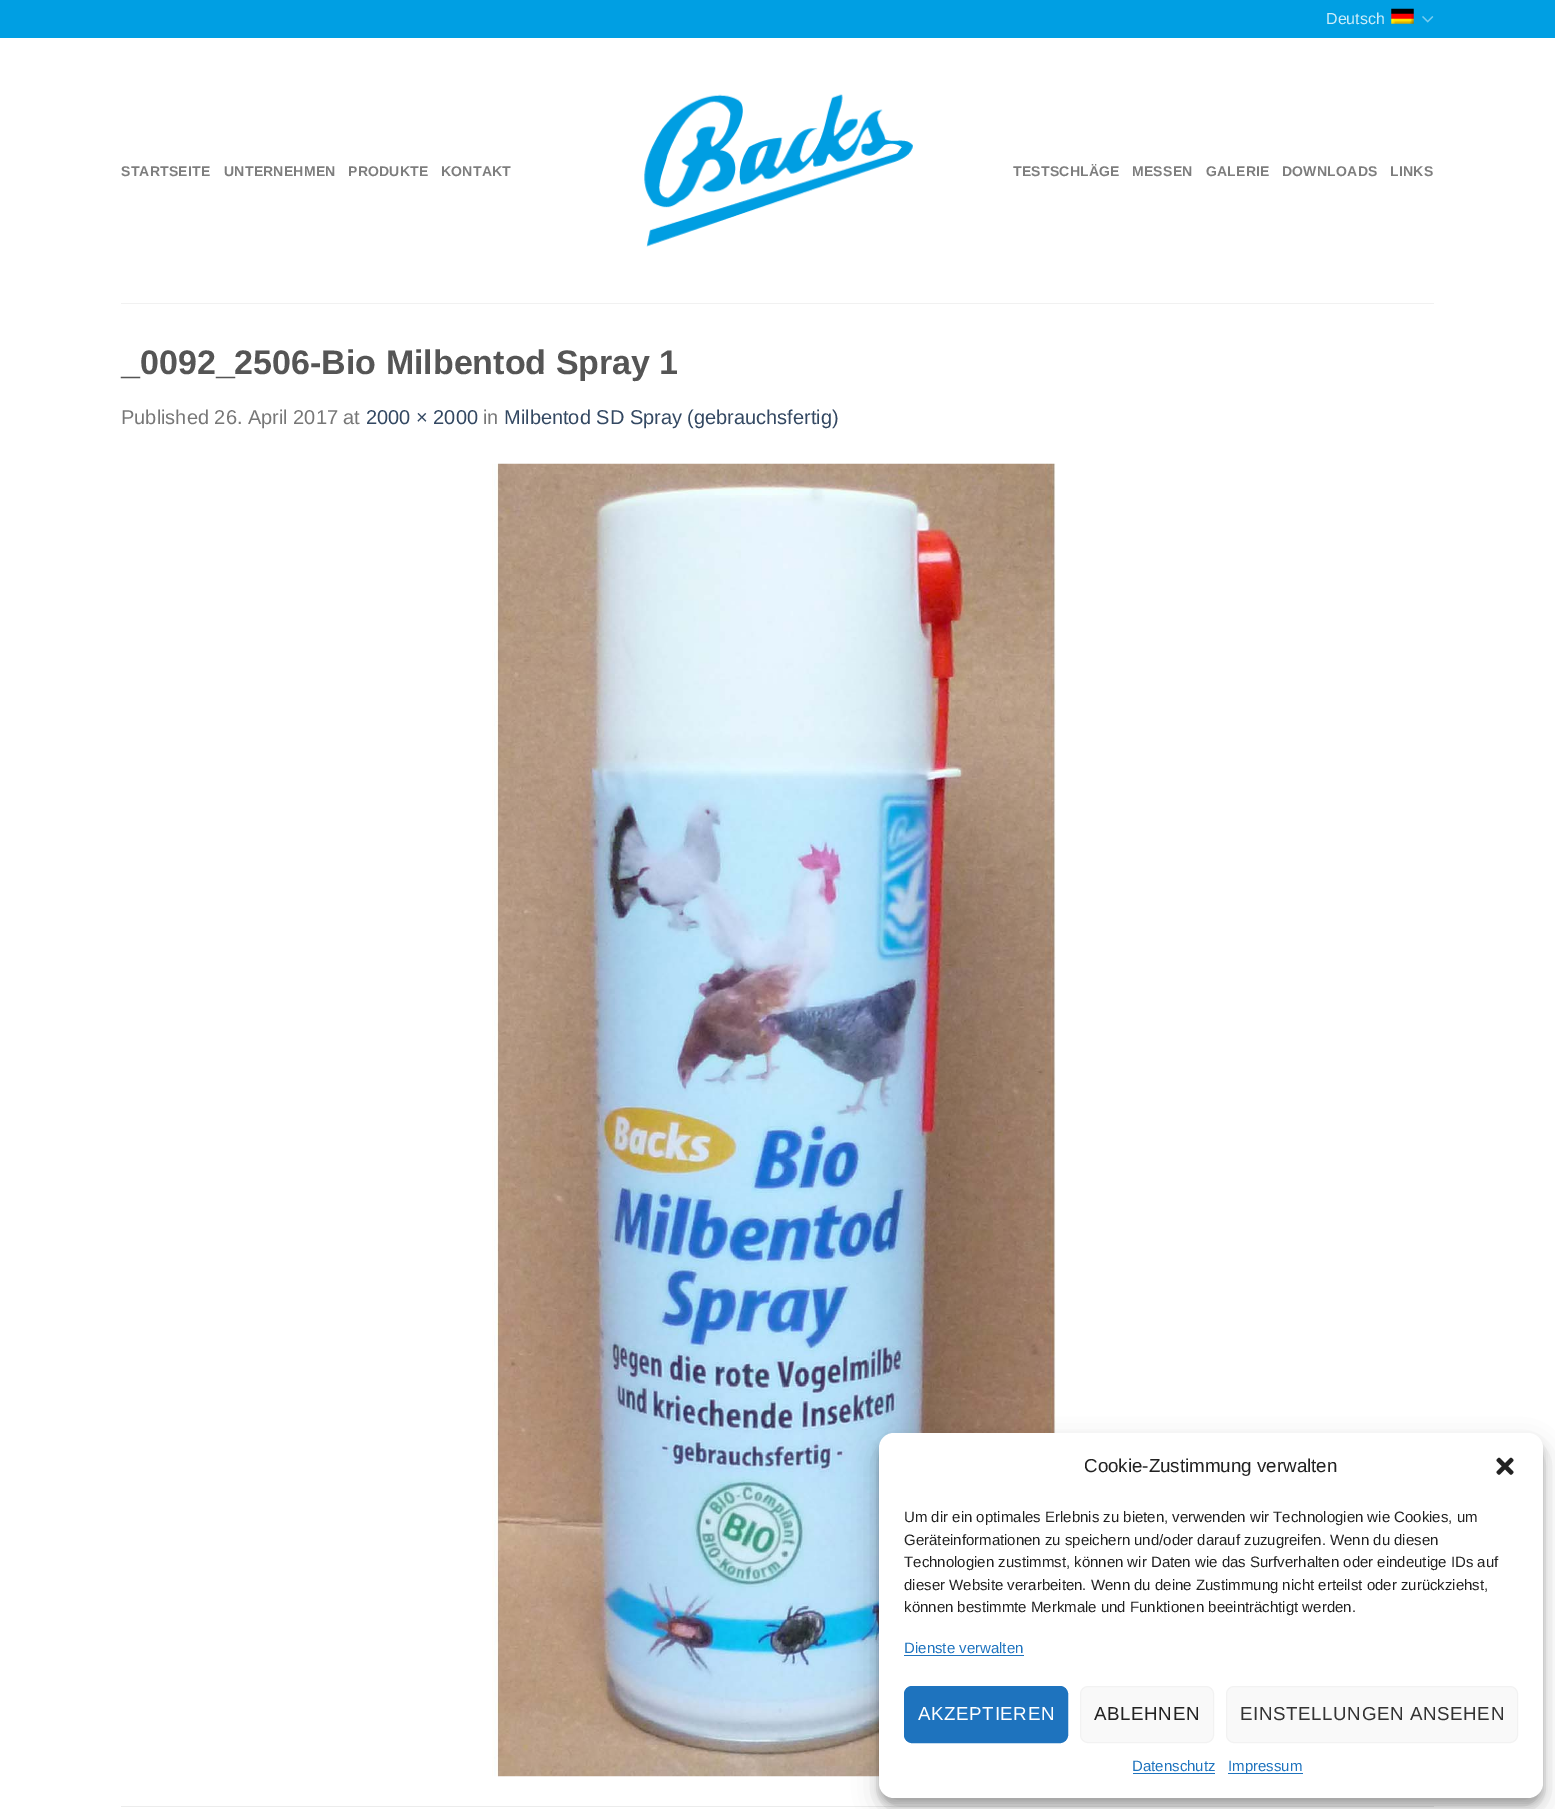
%!PS-Adobe-3.0
%%BoundingBox: 0 0 1555 1809
%%LanguageLevel: 3
%%Pages: 1
%%EndComments
%%BeginProlog
/setink { dup -16 bitshift 255 div exch dup -8 bitshift 255 and 255 div exch 255 and 255 div setrgbcolor } def
/usefont { [ exch dup neg 0 0 3 -1 roll 0 0 ] selectfont } def
/setalpha { dup .setfillconstantalpha .setstrokeconstantalpha } def
/rrect { 5 dict begin { /r /h /w /y /x } { exch def } forall
  x r add y moveto x w add y 2 copy h add r arct x w add y h add x 1 index r arct
  x y h add x y r arct x y 2 copy exch w add exch r arct closepath end } def
/softshadow { 12 dict begin { /a /b /q /h /w /y /x } { exch def } forall gsave /was 0 def
  9 -2 -9 { dup b mul 4 div /e exch def 1 sub .425 mul 2.718 exch exp 1 add a .99 .min exch div /now exch def
    1 1 now sub 1 was sub div sub setalpha /was now def
    w h .min e 2 mul add 0 gt { x e sub y e sub w e 2 mul add h e 2 mul add
      q e add b .6 mul add w h .min 2 div e add .min 0 .max rrect fill } if } for grestore end } def
/drawimage { 5 dict begin { /h /w /y /x /name } { exch def } forall
  gsave x y translate w h scale
  w h 8 [w 0 0 h 0 0] name (r) file false 3 colorimage grestore end } def
%%EndProlog
%%BeginSetup
<< /PageSize [1555 1809] /PageUsesTransparency true >> setpagedevice
%%EndSetup
%%Page: 1 1
0 .pushpdf14devicefilter
0 1809 translate 1 -1 scale
4 setmiterlimit
16#FFFFFF setink
0 0 1555 1809 rectfill
16#009FE3 setink
0 0 1555 38 rectfill
/LiberationSans-Regular 16 usefont
16#CCECF9 setink
1326 24 moveto (Deutsch) show
(img1.raw) 1391 8 23 16 drawimage
(img2.raw) 1422 16 12 7 drawimage
/LiberationSans-Bold 14 usefont
16#7D7D7D setink
121 176 moveto 0.25 0 (STARTSEITE) ashow
224 176 moveto 0.25 0 (UNTERNEHMEN) ashow
348 176 moveto 0.25 0 (PRODUKTE) ashow
441 176 moveto 0.25 0 (KONTAKT) ashow
(img3.raw) 644 94 269 153 drawimage
1013 176 moveto 0.25 0 (TESTSCHLÄGE) ashow
1132 176 moveto 0.25 0 (MESSEN) ashow
1206 176 moveto 0.25 0 (GALERIE) ashow
1282 176 moveto 0.25 0 (DOWNLOADS) ashow
1390 176 moveto 0.25 0 (LINKS) ashow
16#F1F1F1 setink
121 303 1313 1 rectfill
/LiberationSans-Bold 34 usefont
16#555555 setink
121 374 moveto (_0092_2506-Bio Milbentod Spray 1) show
/LiberationSans-Regular 20 usefont
16#777777 setink
121 424 moveto (Published 26. April 2017 at) show
16#334862 setink
366 424 moveto (2000 × 2000) show
16#777777 setink
483 424 moveto (in) show
16#334862 setink
504 424 moveto (Milbentod SD Spray \(gebrauchsfertig\)) show
(img4.raw) 492 463 564 1314 drawimage
16#ECECEC setink
121 1806 1313 1 rectfill
16#000000 setink
879 1440 664 365 15 4 0.23 softshadow
879 1445 664 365 15 12.5 0.19 softshadow
16#FFFFFF setink
879 1433 664 365 15 rrect fill
/LiberationSans-Regular 18.75 usefont
16#222222 setink
1084 1472 moveto (Cookie-Zustimmung verwalten) show
(img5.raw) 1496 1457 18 18 drawimage
/LiberationSans-Regular 15 usefont
[
    [(Um dir ein optimales Erlebnis zu bieten, verwenden wir Technologien wie Cookies, um) 904 1522]
    [(Geräteinformationen zu speichern und/oder darauf zuzugreifen. Wenn du diesen) 904 1545]
    [(Technologien zustimmst, können wir Daten wie das Surfverhalten oder eindeutige IDs auf) 904 1567]
    [(dieser Website verarbeiten. Wenn du deine Zustimmung nicht erteilst oder zurückziehst,) 904 1590]
    [(können bestimmte Merkmale und Funktionen beeinträchtigt werden.) 904 1612]
] { aload pop moveto show } forall
16#1E73BE setink
904 1653 moveto (Dienste verwalten) show
904 1655 120 1 rectfill
904.5 1686.5 163 56 7.5 rrect gsave fill grestore
stroke
/LiberationSans-Regular 18.75 usefont
16#FFFFFF setink
918 1720 moveto 0.6 0 (AKZEPTIEREN) ashow
16#F9F9F9 setink
1080.5 1686.5 133 56 7.5 rrect gsave fill grestore
16#F2F2F2 setink
stroke
16#222222 setink
1094 1720 moveto 0.6 0 (ABLEHNEN) ashow
16#F9F9F9 setink
1226.5 1686.5 291 56 7.5 rrect gsave fill grestore
16#F2F2F2 setink
stroke
16#333333 setink
1240 1720 moveto 0.6 0 (EINSTELLUNGEN ANSEHEN) ashow
/LiberationSans-Regular 15 usefont
16#1E73BE setink
1132 1771 moveto (Datenschutz) show
1133 1773 82 1 rectfill
1228 1773 75 1 rectfill
1228 1771 moveto (Impressum) show
.poppdf14devicefilter showpage
%%EOF
